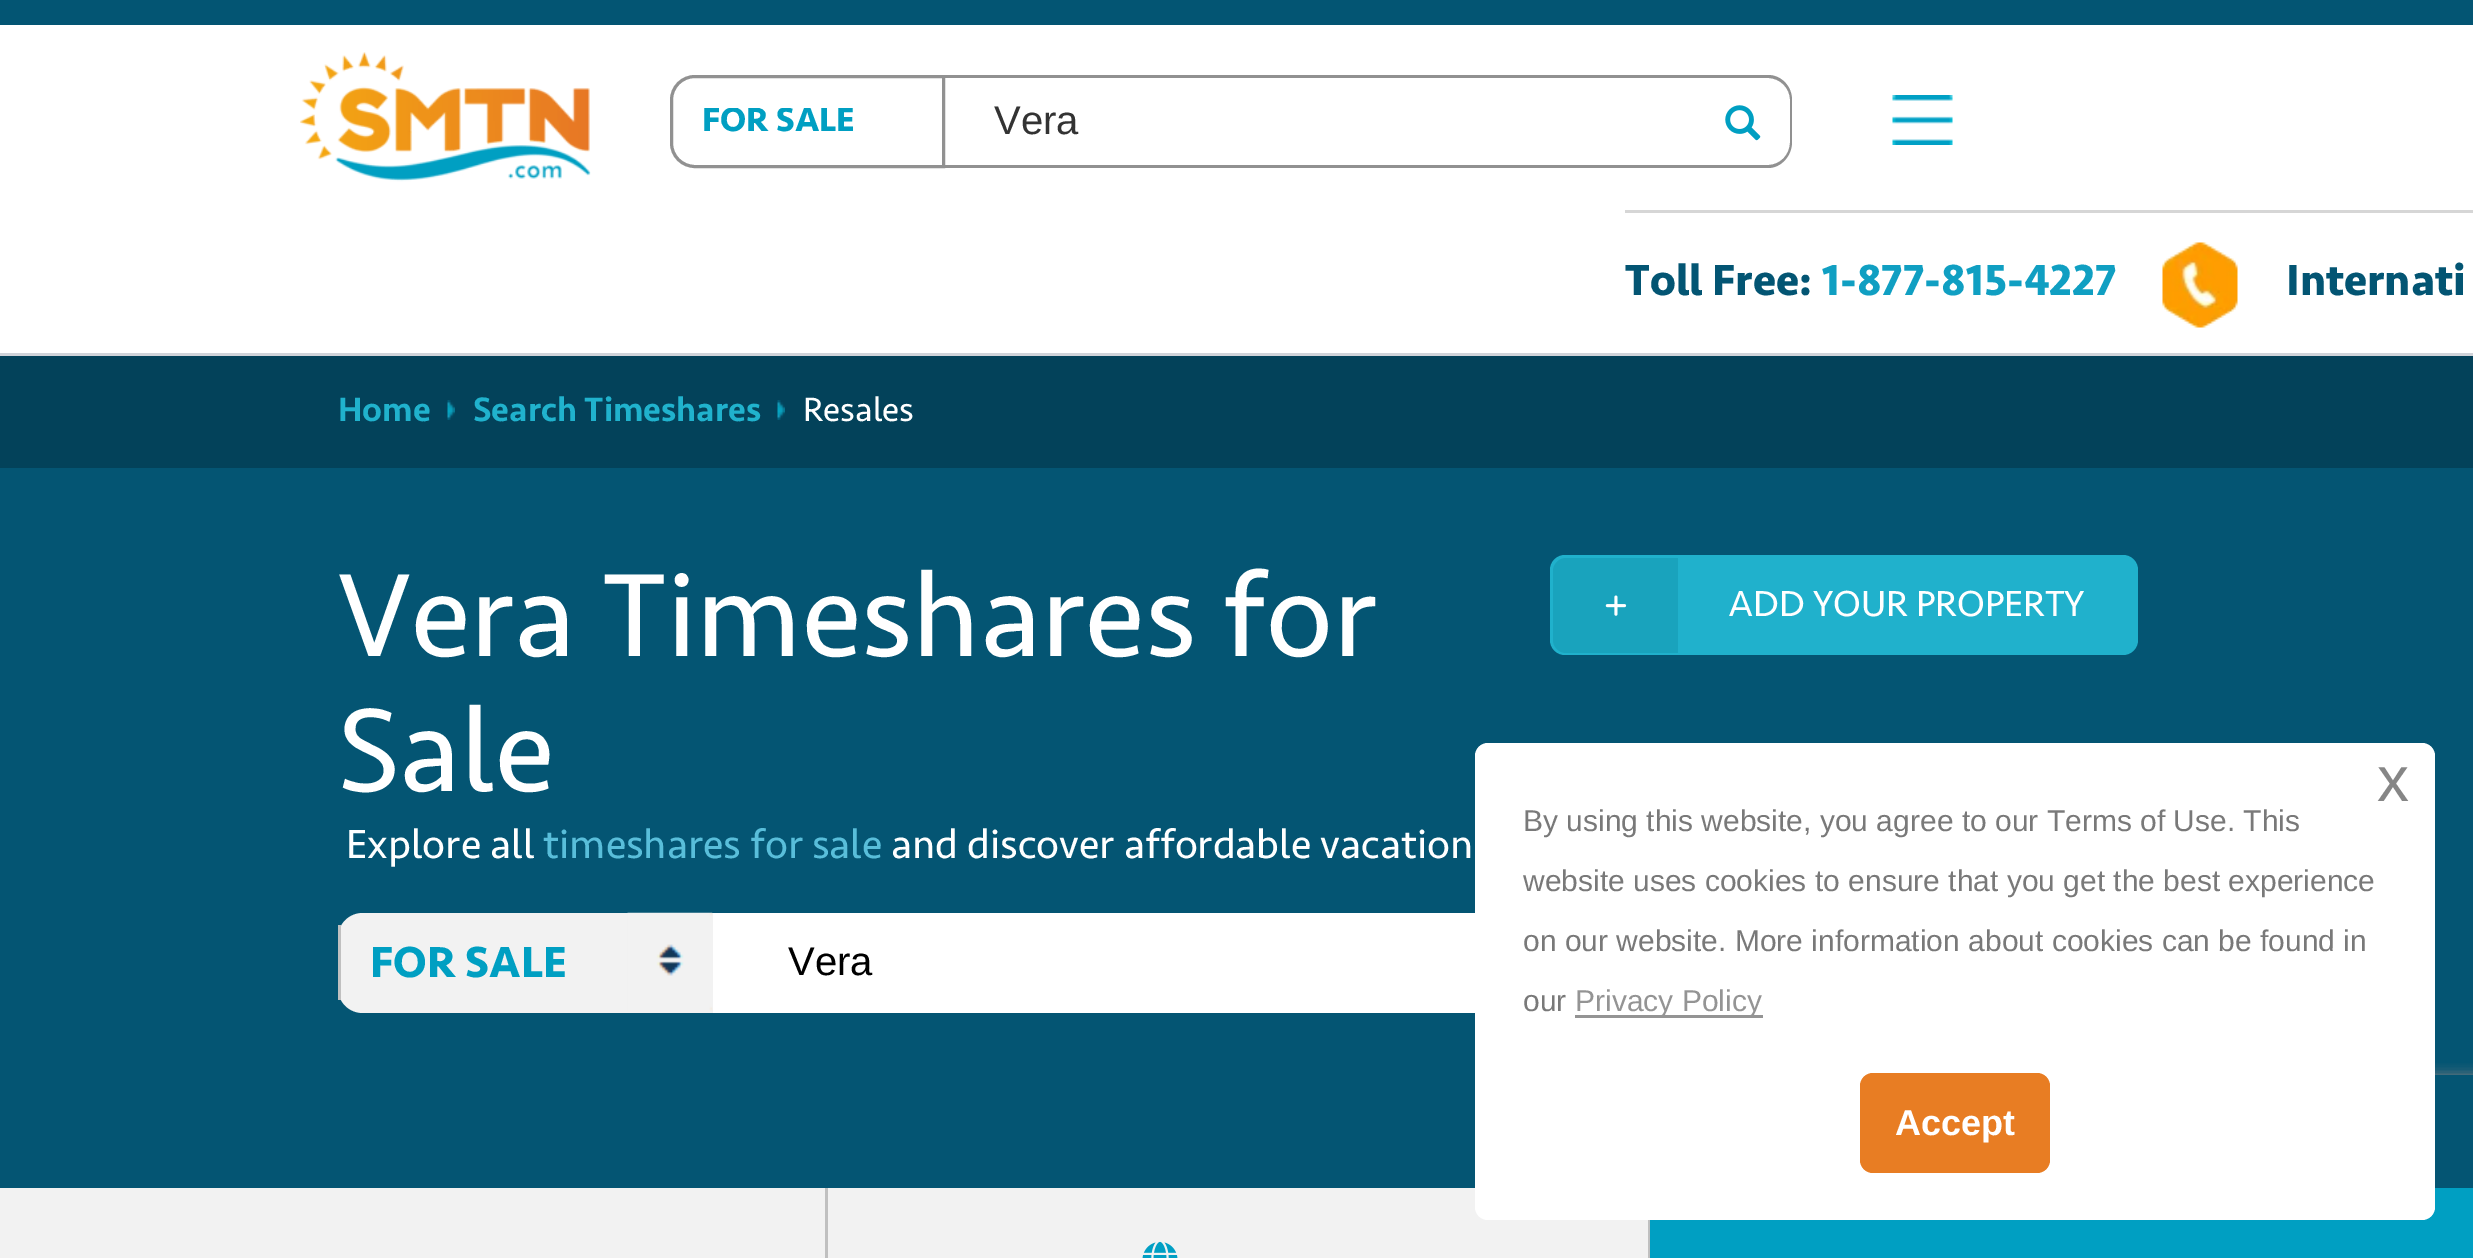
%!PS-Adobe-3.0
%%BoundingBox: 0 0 2473 1258
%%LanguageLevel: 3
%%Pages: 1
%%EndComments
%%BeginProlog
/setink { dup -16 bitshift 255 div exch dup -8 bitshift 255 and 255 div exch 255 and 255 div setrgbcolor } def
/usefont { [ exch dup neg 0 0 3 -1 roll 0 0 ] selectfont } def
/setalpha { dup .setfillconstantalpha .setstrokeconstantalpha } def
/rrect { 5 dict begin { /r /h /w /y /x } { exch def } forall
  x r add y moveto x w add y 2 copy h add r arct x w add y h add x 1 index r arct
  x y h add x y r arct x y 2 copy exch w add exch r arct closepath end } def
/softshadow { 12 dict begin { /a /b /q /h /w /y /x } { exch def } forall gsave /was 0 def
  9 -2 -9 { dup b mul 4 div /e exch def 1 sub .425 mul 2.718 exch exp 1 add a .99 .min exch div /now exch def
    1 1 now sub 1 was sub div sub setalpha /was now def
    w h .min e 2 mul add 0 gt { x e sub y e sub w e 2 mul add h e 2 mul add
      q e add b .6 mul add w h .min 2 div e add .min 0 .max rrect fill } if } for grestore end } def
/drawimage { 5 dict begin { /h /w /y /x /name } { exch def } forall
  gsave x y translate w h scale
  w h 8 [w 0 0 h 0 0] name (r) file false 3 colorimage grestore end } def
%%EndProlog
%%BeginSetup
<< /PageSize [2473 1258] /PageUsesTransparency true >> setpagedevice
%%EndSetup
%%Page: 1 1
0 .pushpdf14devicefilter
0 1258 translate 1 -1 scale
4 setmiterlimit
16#FFFFFF setink
0 0 2473 1258 rectfill
16#035573 setink
0 0 2473 25 rectfill
16#D0D3D9 setink
0 353 2473 3 rectfill
(img1.raw) 300 52 291 130 drawimage
16#919191 setink
3 setlinewidth
695 76.5 moveto 943.5 76.5 lineto 943.5 166.5 lineto 695 166.5 lineto 682 166.5 671.5 156 671.5 143 curveto 671.5 100 lineto 671.5 87 682 76.5 695 76.5 curveto closepath stroke
gsave
703 108 177 30 rectclip
/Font-Bold 35 usefont
16#009FC2 setink
702 131 moveto (FOR SALE) show
grestore
945 75 750 3 rectfill
945 165 750 3 rectfill
/LiberationSans-Regular 40 usefont
16#333333 setink
994 134 moveto (Vera) show
16#919191 setink
1695 75 moveto 1768 75 lineto 1781 75 1792 86 1792 100 curveto 1792 142 lineto 1792 156 1781 168 1768 168 curveto 1695 168 lineto closepath 1695 78 moveto 1768 78 lineto 1780 78 1790 88 1790 100 curveto 1790 142 lineto 1790 155 1780 165 1768 165 curveto 1695 165 lineto closepath eofill
(img2.raw) 1725 105 36 36 drawimage
(img3.raw) 1892 95 61 50 drawimage
16#D6D6D6 setink
1625 210 848 3 rectfill
/Font-Bold 45 usefont
16#035573 setink
1625 295 moveto (Toll Free:) show
16#109FC2 setink
1822 295 moveto (1-877-815-4227) show
(img4.raw) 2162 242 76 86 drawimage
16#035573 setink
2286 295 moveto (Internati) show
16#03425A setink
0 356 2473 112 rectfill
(img5.raw) 447 400 8 20 drawimage
/Font-SemiBold 35 usefont
16#20B2CD setink
338 421 moveto (Home) show
(img6.raw) 777 400 8 20 drawimage
473 421 moveto (Search Timeshares) show
/Font-Regular 35 usefont
16#FFFFFF setink
803 421 moveto (Resales) show
16#045573 setink
0 468 2473 720 rectfill
/Font-Regular 122.5 usefont
16#FFFFFF setink
338 656 moveto (Vera Timeshares for) show
16#20B1CC setink
1550 555 588 100 15 rrect fill
16#19A3BD setink
1566 558 moveto 1678 558 lineto 1678 653 lineto 1566 653 lineto 1559 653 1553 647 1553 640 curveto 1553 571 lineto 1553 564 1559 558 1566 558 curveto closepath fill
(img7.raw) 1605 595 22 21 drawimage
/Font-Regular 37.5 usefont
16#FFFFFF setink
1728 616 moveto (ADD YOUR PROPERTY) show
/Font-Regular 122.5 usefont
338 791 moveto (Sale) show
/Font-Regular 42 usefont
346 858 moveto (Explore all) show
16#59BEDA setink
543 858 moveto (timeshares for sale) show
16#FFFFFF setink
891 858 moveto (and discover affordable vacation) show
16#F2F2F2 setink
363 913 moveto 713 913 lineto 713 1013 lineto 363 1013 lineto 349 1013 338 1002 338 988 curveto 338 938 lineto 338 924 349 913 363 913 curveto closepath fill
(img8.raw) 627 912 86 99 drawimage
16#C0C0C0 setink
338 925 3 75 rectfill
/Font-Bold 45 usefont
16#009FC2 setink
370 977 moveto (FOR SALE) show
16#FFFFFF setink
713 913 762 100 rectfill
/LiberationSans-Regular 40 usefont
16#000000 setink
788 975 moveto (Vera) show
[
    [0 1188 825 70 16#F2F2F2]
    [828 1188 820 70 16#F2F2F2]
    [1648 1220 2 38 16#C0C0C0]
    [825 1188 3 70 16#C0C0C0]
] { aload pop setink rectfill } forall
(img9.raw) 1142 1241 36 17 drawimage
gsave
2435 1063 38 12 rectclip
16#808080 setink
2300 1075 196 150 5 6 1 softshadow
grestore
16#009FC2 setink
1650 1188 823 70 rectfill
16#FFFFFF setink
1475 743 960 477 13 rrect fill
/LiberationSans-Regular 64 usefont
16#868686 setink
2377 801 moveto (x) show
/LiberationSans-Regular 30 usefont
16#797979 setink
[
    [(By using this website, you agree to our Terms of Use. This) 1523 831]
    [(website uses cookies to ensure that you get the best experience) 1523 891]
    [(on our website. More information about cookies can be found in) 1523 951]
    [(our) 1523 1011]
] { aload pop moveto show } forall
16#949494 setink
1575 1015 188 3 rectfill
1575 1011 moveto (Privacy Policy) show
16#E87D23 setink
1860 1073 190 100 13 rrect fill
/LiberationSans-Bold 36 usefont
16#FFFFFF setink
1895 1135 moveto (Accept) show
.poppdf14devicefilter showpage
%%EOF
